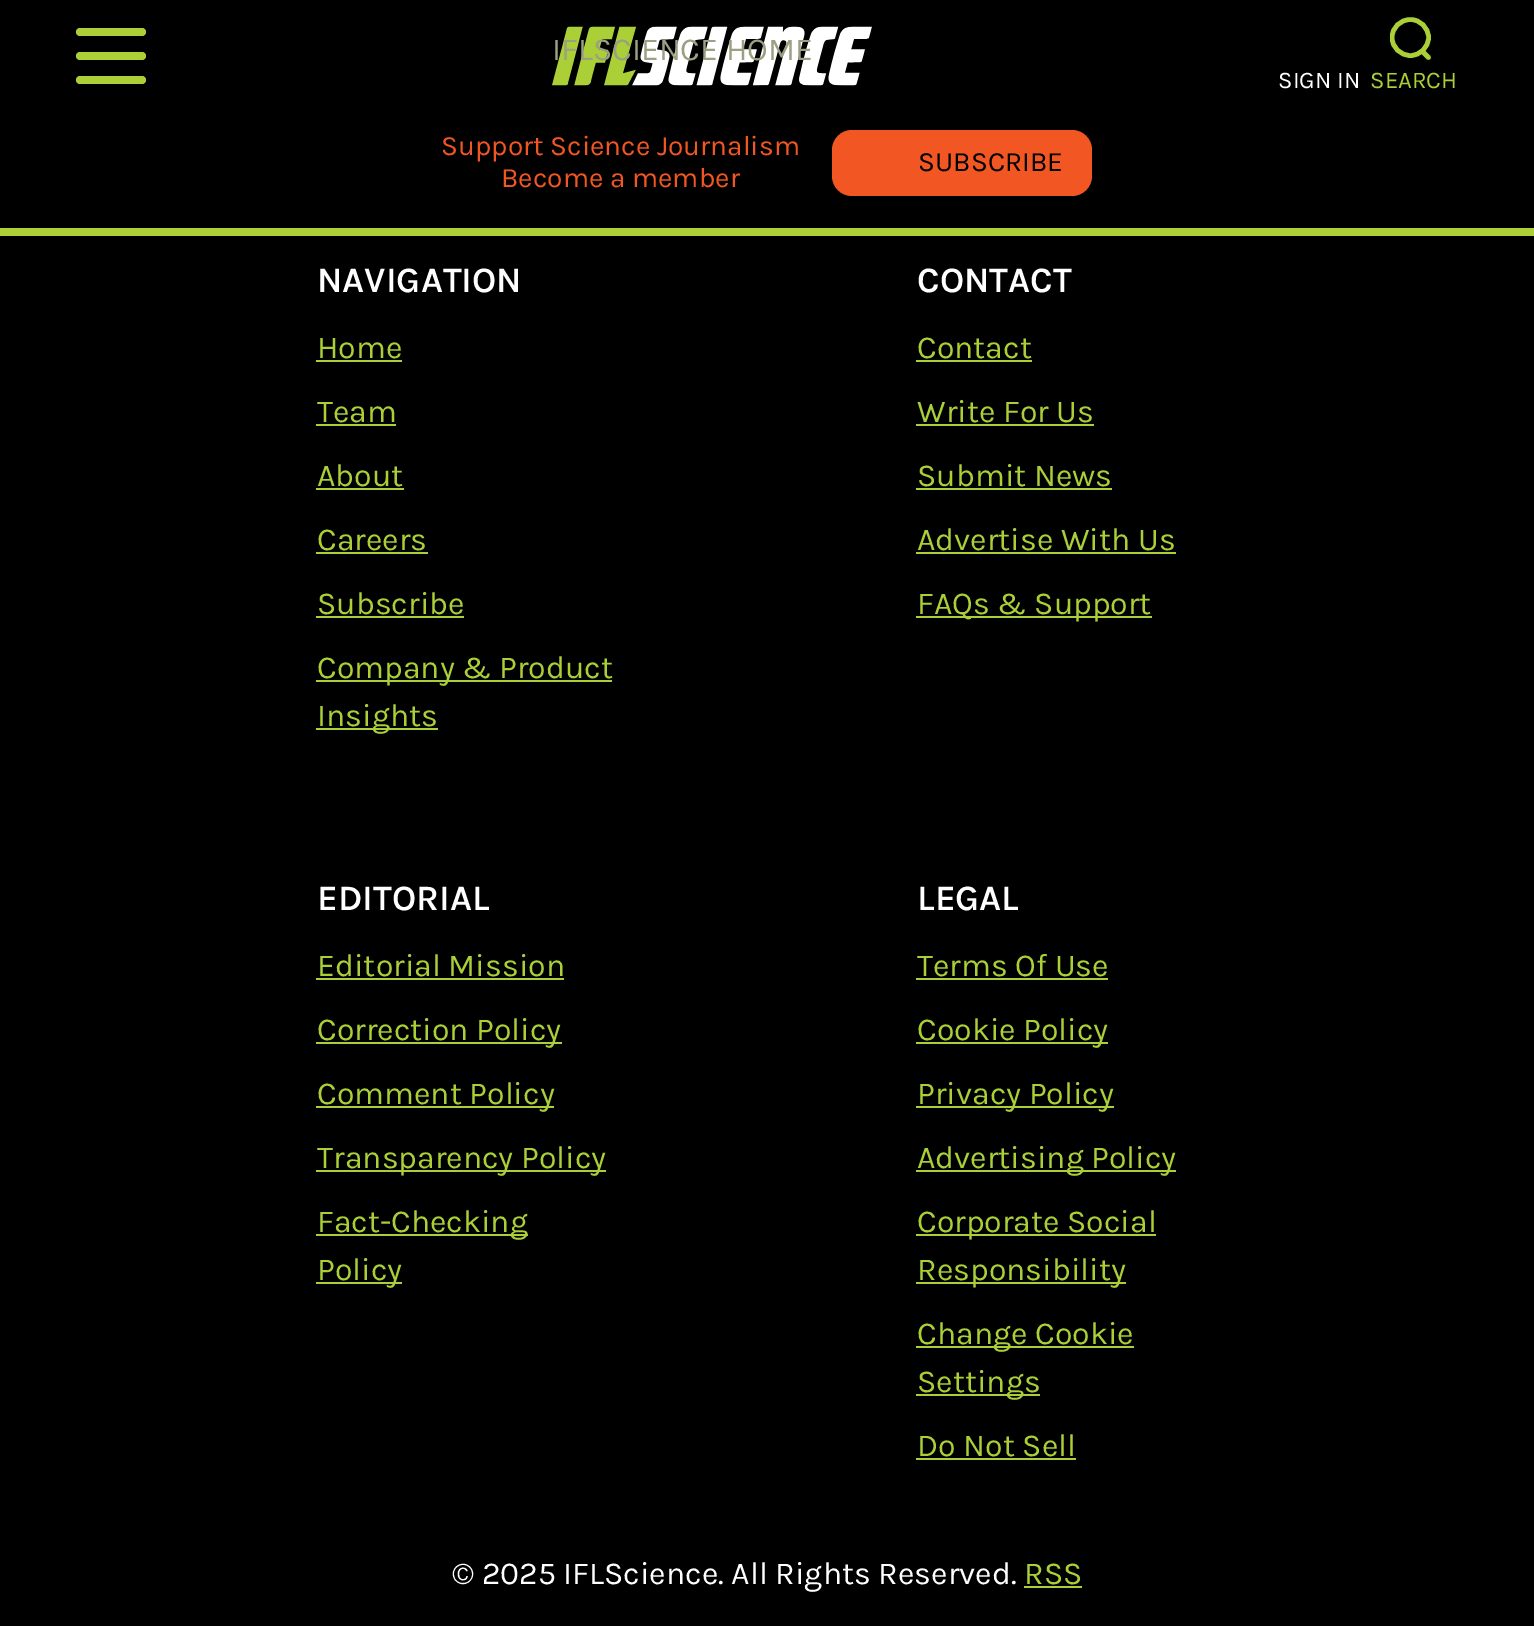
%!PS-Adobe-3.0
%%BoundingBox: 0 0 1534 1626
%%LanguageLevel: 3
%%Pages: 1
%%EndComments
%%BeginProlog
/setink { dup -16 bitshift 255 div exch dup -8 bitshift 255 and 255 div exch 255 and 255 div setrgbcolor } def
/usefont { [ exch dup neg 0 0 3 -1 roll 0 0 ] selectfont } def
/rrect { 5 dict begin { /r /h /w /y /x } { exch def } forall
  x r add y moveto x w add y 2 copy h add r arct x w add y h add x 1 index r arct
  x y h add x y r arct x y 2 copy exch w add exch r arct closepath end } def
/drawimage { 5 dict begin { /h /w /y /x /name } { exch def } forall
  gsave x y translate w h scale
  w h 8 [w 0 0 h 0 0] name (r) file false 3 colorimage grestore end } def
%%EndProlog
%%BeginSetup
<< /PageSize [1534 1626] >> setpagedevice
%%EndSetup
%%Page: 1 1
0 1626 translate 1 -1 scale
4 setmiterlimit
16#000000 setink
0 0 1534 1626 rectfill
16#ABD037 setink
0 228 1534 8 rectfill
76 28 70 8 4 rrect fill
76 52 70 8 4 rrect fill
76 76 70 8 4 rrect fill
(img1.raw) 552 26 320 60 drawimage
/Karla-Regular 32 usefont
16#9AA182 setink
552 60 moveto (IFLSCIENCE HOME) show
/Karla-Regular 24 usefont
16#FFFFFF setink
1278 88 moveto (SIGN IN) show
gsave
1390 16 46 46 rectclip
16#ABD037 setink
4.6 setlinewidth
1410.5 19.5 moveto 1400.5 19.5 1392 27.5 1392 37.5 curveto 1392 47.5 1400.5 55.5 1410.5 55.5 curveto 1420 55.5 1428.5 47.5 1428.5 37.5 curveto 1428.5 27.5 1420 19.5 1410.5 19.5 curveto closepath stroke
grestore
16#ABD037 setink
4.6 setlinewidth
1 setlinecap
1423 52 moveto 1428.5 57.5 lineto stroke
1370 88 moveto (SEARCH) show
/Karla-Regular 28 usefont
16#F15623 setink
441 155 moveto (Support Science Journalism) show
501 187 moveto (Become a member) show
832 130 260 66 20 rrect fill
16#000000 setink
918 171 moveto (SUBSCRIBE) show
/Karla-SemiBold 36 usefont
16#FFFFFF setink
317 292 moveto (NAVIGATION) show
/Karla-Regular 32 usefont
16#ABD037 setink
317 358 moveto (Home) show
316 360 86 2 rectfill
317 422 moveto (Team) show
316 424 80 2 rectfill
317 486 moveto (About) show
316 488 88 2 rectfill
317 550 moveto (Careers) show
316 552 112 2 rectfill
317 614 moveto (Subscribe) show
316 616 148 2 rectfill
316 680 296 2 rectfill
317 678 moveto (Company & Product) show
316 728 122 2 rectfill
317 726 moveto (Insights) show
/Karla-SemiBold 36 usefont
16#FFFFFF setink
917 292 moveto (CONTACT) show
/Karla-Regular 32 usefont
16#ABD037 setink
917 358 moveto (Contact) show
916 360 116 2 rectfill
917 422 moveto (Write For Us) show
916 424 178 2 rectfill
917 486 moveto (Submit News) show
916 488 196 2 rectfill
917 550 moveto (Advertise With Us) show
916 552 260 2 rectfill
916 616 236 2 rectfill
917 614 moveto (FAQs & Support) show
/Karla-SemiBold 36 usefont
16#FFFFFF setink
317 910 moveto (EDITORIAL) show
/Karla-Regular 32 usefont
16#ABD037 setink
317 976 moveto (Editorial Mission) show
316 978 248 2 rectfill
316 1042 246 2 rectfill
317 1040 moveto (Correction Policy) show
316 1106 238 2 rectfill
317 1104 moveto (Comment Policy) show
316 1170 290 2 rectfill
317 1168 moveto (Transparency Policy) show
316 1234 212 2 rectfill
317 1232 moveto (Fact-Checking) show
316 1282 86 2 rectfill
317 1280 moveto (Policy) show
/Karla-SemiBold 36 usefont
16#FFFFFF setink
917 910 moveto (LEGAL) show
/Karla-Regular 32 usefont
16#ABD037 setink
917 976 moveto (Terms Of Use) show
916 978 192 2 rectfill
916 1042 192 2 rectfill
917 1040 moveto (Cookie Policy) show
916 1106 198 2 rectfill
917 1104 moveto (Privacy Policy) show
916 1170 260 2 rectfill
917 1168 moveto (Advertising Policy) show
916 1234 240 2 rectfill
917 1232 moveto (Corporate Social) show
916 1282 210 2 rectfill
917 1280 moveto (Responsibility) show
916 1346 218 2 rectfill
917 1344 moveto (Change Cookie) show
916 1394 124 2 rectfill
917 1392 moveto (Settings) show
917 1456 moveto (Do Not Sell) show
916 1458 160 2 rectfill
16#FFFFFF setink
452 1584 moveto (© 2025 IFLScience. All Rights Reserved.) show
16#ABD037 setink
1024 1584 moveto (RSS) show
1024 1586 58 2 rectfill
showpage
%%EOF
